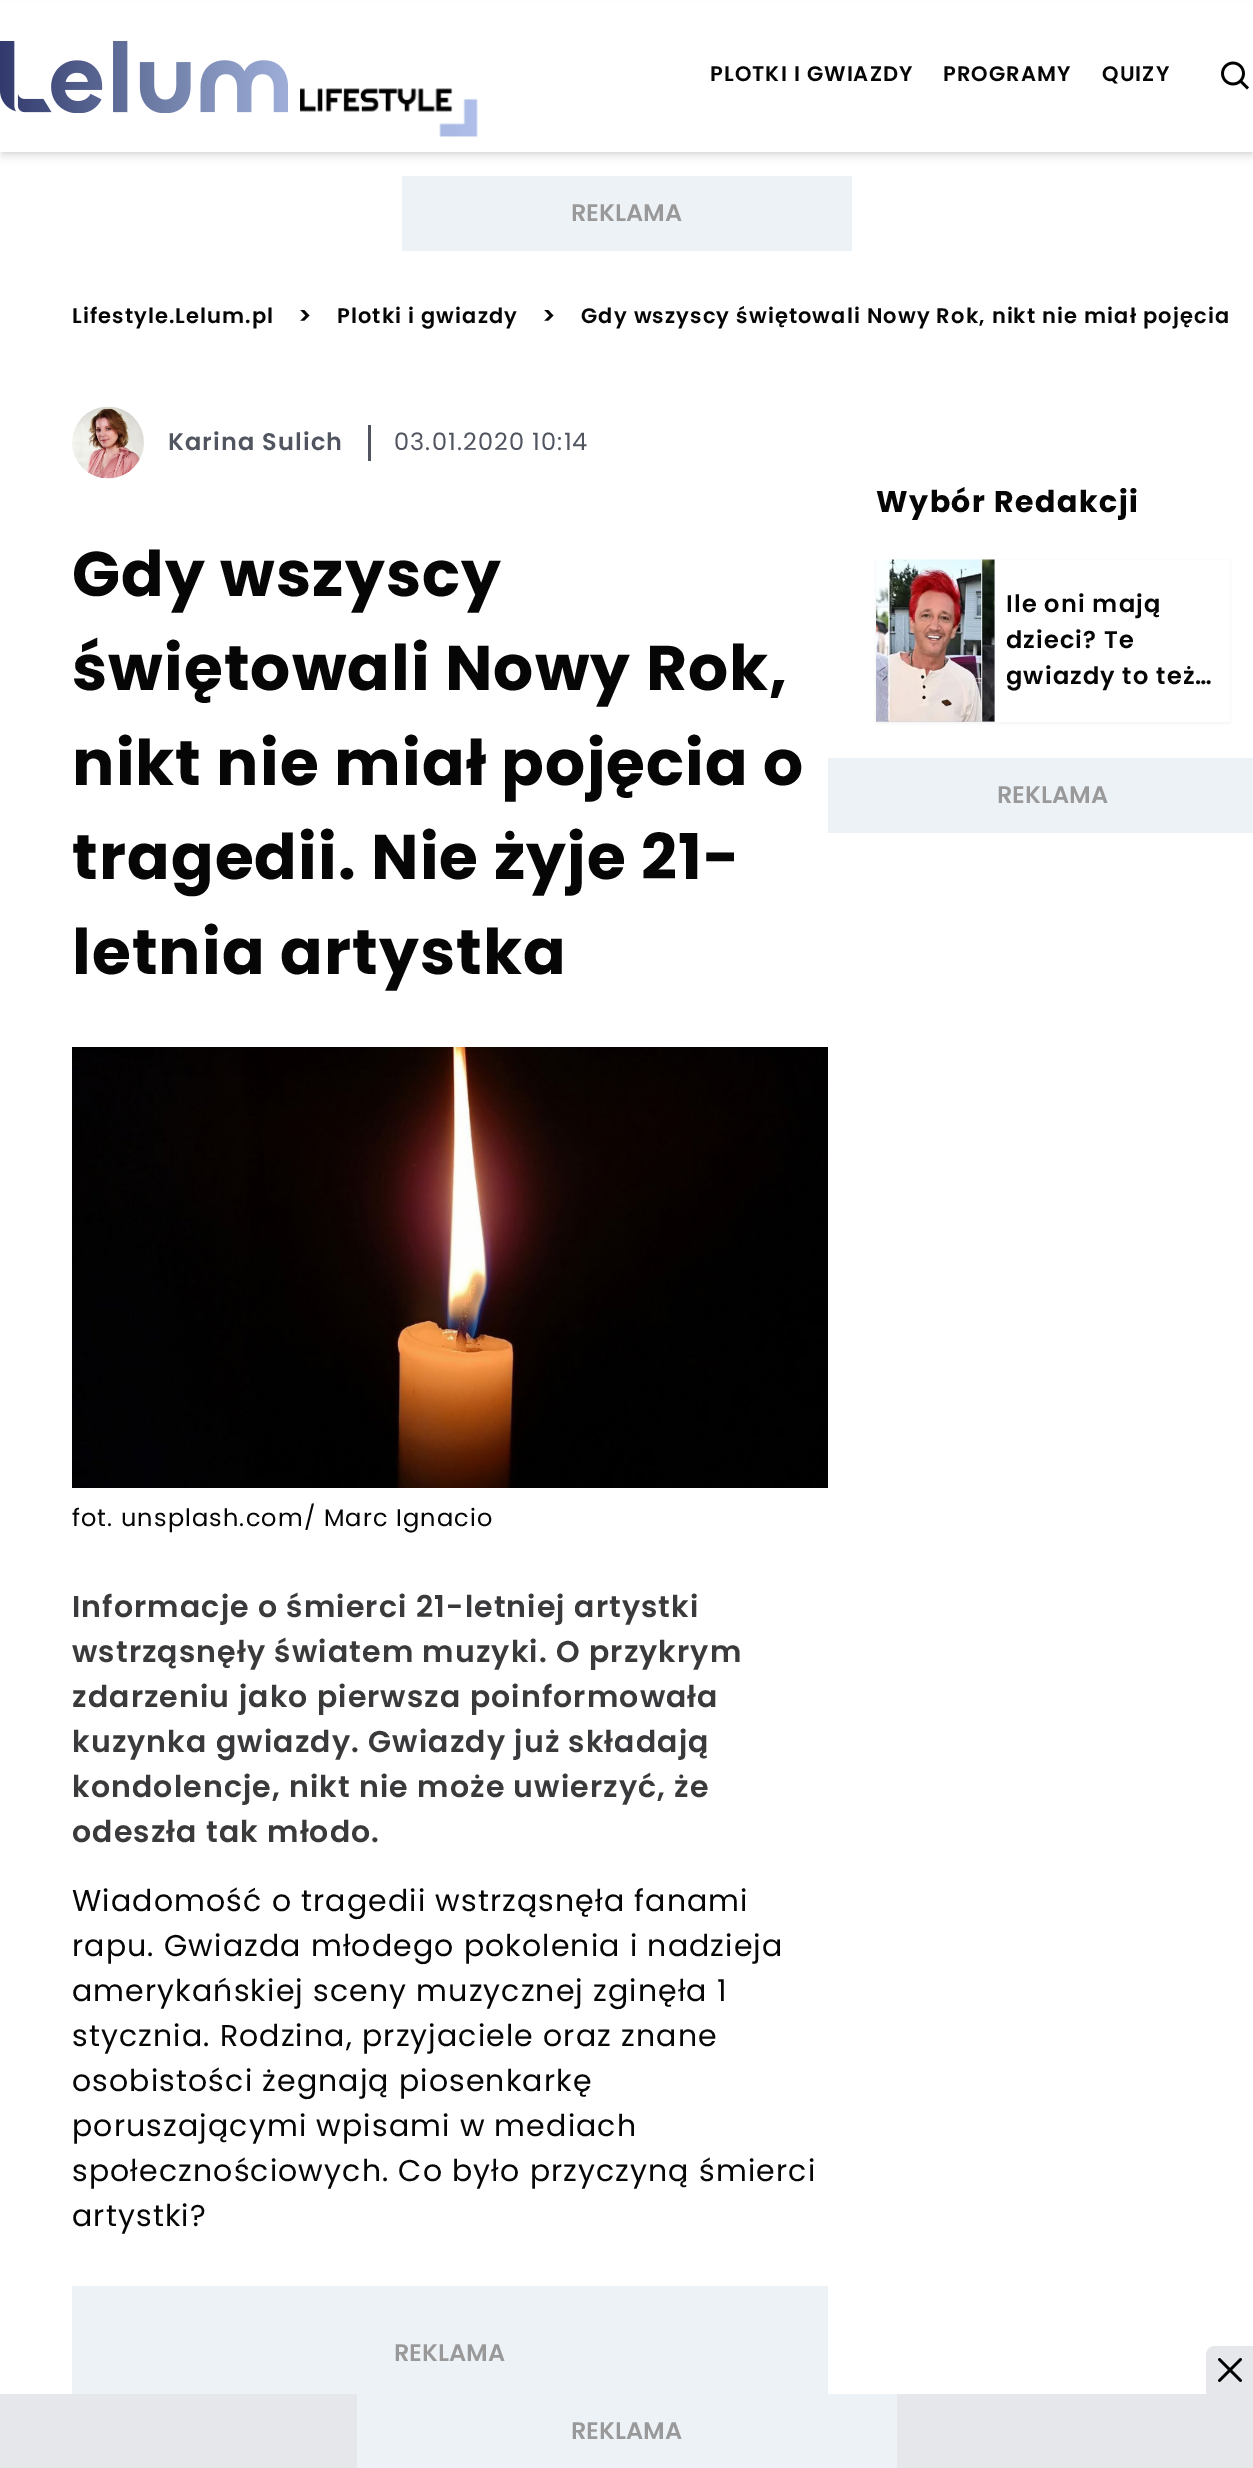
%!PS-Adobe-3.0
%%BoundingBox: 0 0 1253 2468
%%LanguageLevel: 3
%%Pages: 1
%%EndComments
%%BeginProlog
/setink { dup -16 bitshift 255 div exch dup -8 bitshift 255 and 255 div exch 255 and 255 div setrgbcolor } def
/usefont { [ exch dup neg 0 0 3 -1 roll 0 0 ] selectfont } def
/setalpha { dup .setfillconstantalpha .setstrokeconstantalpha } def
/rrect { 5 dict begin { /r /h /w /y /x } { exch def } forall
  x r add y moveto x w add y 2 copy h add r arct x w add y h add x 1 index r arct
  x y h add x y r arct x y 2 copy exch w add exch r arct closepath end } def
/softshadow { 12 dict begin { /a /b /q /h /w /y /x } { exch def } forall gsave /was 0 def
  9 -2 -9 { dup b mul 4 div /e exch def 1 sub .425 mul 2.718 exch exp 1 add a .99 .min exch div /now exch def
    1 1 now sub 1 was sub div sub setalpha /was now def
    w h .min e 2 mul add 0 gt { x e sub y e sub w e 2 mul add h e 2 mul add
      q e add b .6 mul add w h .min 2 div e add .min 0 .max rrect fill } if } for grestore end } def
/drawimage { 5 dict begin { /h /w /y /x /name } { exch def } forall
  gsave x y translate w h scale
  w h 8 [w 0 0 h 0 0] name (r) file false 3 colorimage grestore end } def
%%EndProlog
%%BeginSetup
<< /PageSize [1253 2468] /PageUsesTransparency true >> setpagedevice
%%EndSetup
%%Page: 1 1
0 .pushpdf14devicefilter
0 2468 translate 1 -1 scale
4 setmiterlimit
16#FFFFFF setink
0 0 1253 2468 rectfill
16#000000 setink
3 8 1248 144 0 3 0.1 softshadow
2 9 1251 147 0 4.5 0.1 softshadow
16#FFFFFF setink
0 2 1253 150 rectfill
(img1.raw) 0 41 288 72 drawimage
(img2.raw) 300 88 178 49 drawimage
/Poppins-SemiBold 21 usefont
16#070607 setink
710 81 moveto 1.12 0 (PLOTKI I GWIAZDY) ashow
943 81 moveto 1.12 0 (PROGRAMY) ashow
1102 81 moveto 1.12 0 (QUIZY) ashow
(img3.raw) 1221 61 28 29 drawimage
16#EDF2F7 setink
402 176 450 75 rectfill
/Poppins-SemiBold 24 usefont
16#999999 setink
571 221 moveto (REKLAMA) show
/Poppins-SemiBold 21 usefont
16#070607 setink
72 323 moveto 1.12 0 (Lifestyle.Lelum.pl) ashow
/Poppins-SemiBold 24 usefont
298 324 moveto 1.12 0 (>) ashow
/Poppins-SemiBold 21 usefont
337 323 moveto 1.12 0 (Plotki i gwiazdy) ashow
/Poppins-SemiBold 24 usefont
542 324 moveto 1.12 0 (>) ashow
/Poppins-SemiBold 21 usefont
581 323 moveto 1.12 0 (Gdy wszyscy świętowali Nowy Rok, nikt nie miał pojęcia) ashow
(img4.raw) 72 406 72 73 drawimage
/Poppins-SemiBold 24 usefont
16#505560 setink
168 450 moveto 1.12 0 (Karina Sulich) ashow
368 425 3 36 rectfill
/Poppins-Regular 24 usefont
394 450 moveto 1.12 0 (03.01.2020 10:14) ashow
/Poppins-Bold 63 usefont
16#070607 setink
72 596 moveto 1.12 0 (Gdy wszyscy) ashow
72 690 moveto 1.12 0 (świętowali Nowy Rok,) ashow
72 785 moveto 1.12 0 (nikt nie miał pojęcia o) ashow
72 879 moveto 1.12 0 (tragedii. Nie żyje 21-) ashow
72 974 moveto 1.12 0 (letnia artystka) ashow
(img5.raw) 72 1047 756 441 drawimage
/Poppins-Regular 24 usefont
72 1526 moveto 1.12 0 (fot. unsplash.com/ Marc Ignacio) ashow
/Poppins-SemiBold 30 usefont
16#3A3A3C setink
72 1617 moveto 1.12 0 (Informacje o śmierci 21-letniej artystki) ashow
72 1662 moveto 1.12 0 (wstrząsnęły światem muzyki. O przykrym) ashow
72 1707 moveto 1.12 0 (zdarzeniu jako pierwsza poinformowała) ashow
72 1752 moveto 1.12 0 (kuzynka gwiazdy. Gwiazdy już składają) ashow
72 1797 moveto 1.12 0 (kondolencje, nikt nie może uwierzyć, że) ashow
72 1842 moveto 1.12 0 (odeszła tak młodo.) ashow
/Poppins-Regular 30 usefont
16#070607 setink
72 1911 moveto 1.12 0 (Wiadomość o tragedii wstrząsnęła fanami) ashow
72 1956 moveto 1.12 0 (rapu. Gwiazda młodego pokolenia i nadzieja) ashow
72 2001 moveto 1.12 0 (amerykańskiej sceny muzycznej zginęła 1) ashow
72 2046 moveto 1.12 0 (stycznia. Rodzina, przyjaciele oraz znane) ashow
72 2091 moveto 1.12 0 (osobistości żegnają piosenkarkę) ashow
72 2136 moveto 1.12 0 (poruszającymi wpisami w mediach) ashow
72 2181 moveto 1.12 0 (społecznościowych. Co było przyczyną śmierci) ashow
72 2226 moveto 1.12 0 (artystki?) ashow
16#EDF2F7 setink
72 2286 756 108 rectfill
/Poppins-SemiBold 24 usefont
16#999999 setink
394 2361 moveto (REKLAMA) show
/Poppins-Bold 30 usefont
16#070607 setink
876 512 moveto 1.5 0 (Wybór Redakcji) ashow
16#000000 setink
876 561 354 162 0 1.5 0.05 softshadow
16#FFFFFF setink
995 560 235 162 rectfill
gsave 876 560 moveto 995 560 lineto 995 722 lineto 876 722 lineto closepath clip newpath
<< /ShadingType 2 /ColorSpace /DeviceRGB /Coords [858 584 1012 697] /Extend [true true] /Function << /FunctionType 2 /Domain [0 1] /C0 [0.906 0.922 0.961] /C1 [0.8 0.808 0.859] /N 1 >> >> shfill grestore
(img6.raw) 876 559 119 163 drawimage
/Poppins-SemiBold 24 usefont
16#070607 setink
1006 612 moveto 1.12 0 (Ile oni mają) ashow
gsave
1007 587 211 108 rectclip
1006 648 moveto 1.12 0 (dzieci? Te) ashow
1006 684 moveto 1.12 0 (gwiazdy to też…) ashow
grestore
16#EDF2F7 setink
828 758 425 75 rectfill
16#999999 setink
997 803 moveto (REKLAMA) show
16#E5E7EB setink
0 2394 1253 74 rectfill
1215 2346 moveto 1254 2346 lineto 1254 2394 lineto 1206 2394 lineto 1206 2355 lineto 1206 2350 1210 2346 1215 2346 curveto closepath fill
(img7.raw) 1218 2358 24 24 drawimage
16#EDF2F7 setink
357 2394 540 74 rectfill
16#999999 setink
571 2439 moveto (REKLAMA) show
.poppdf14devicefilter showpage
%%EOF
